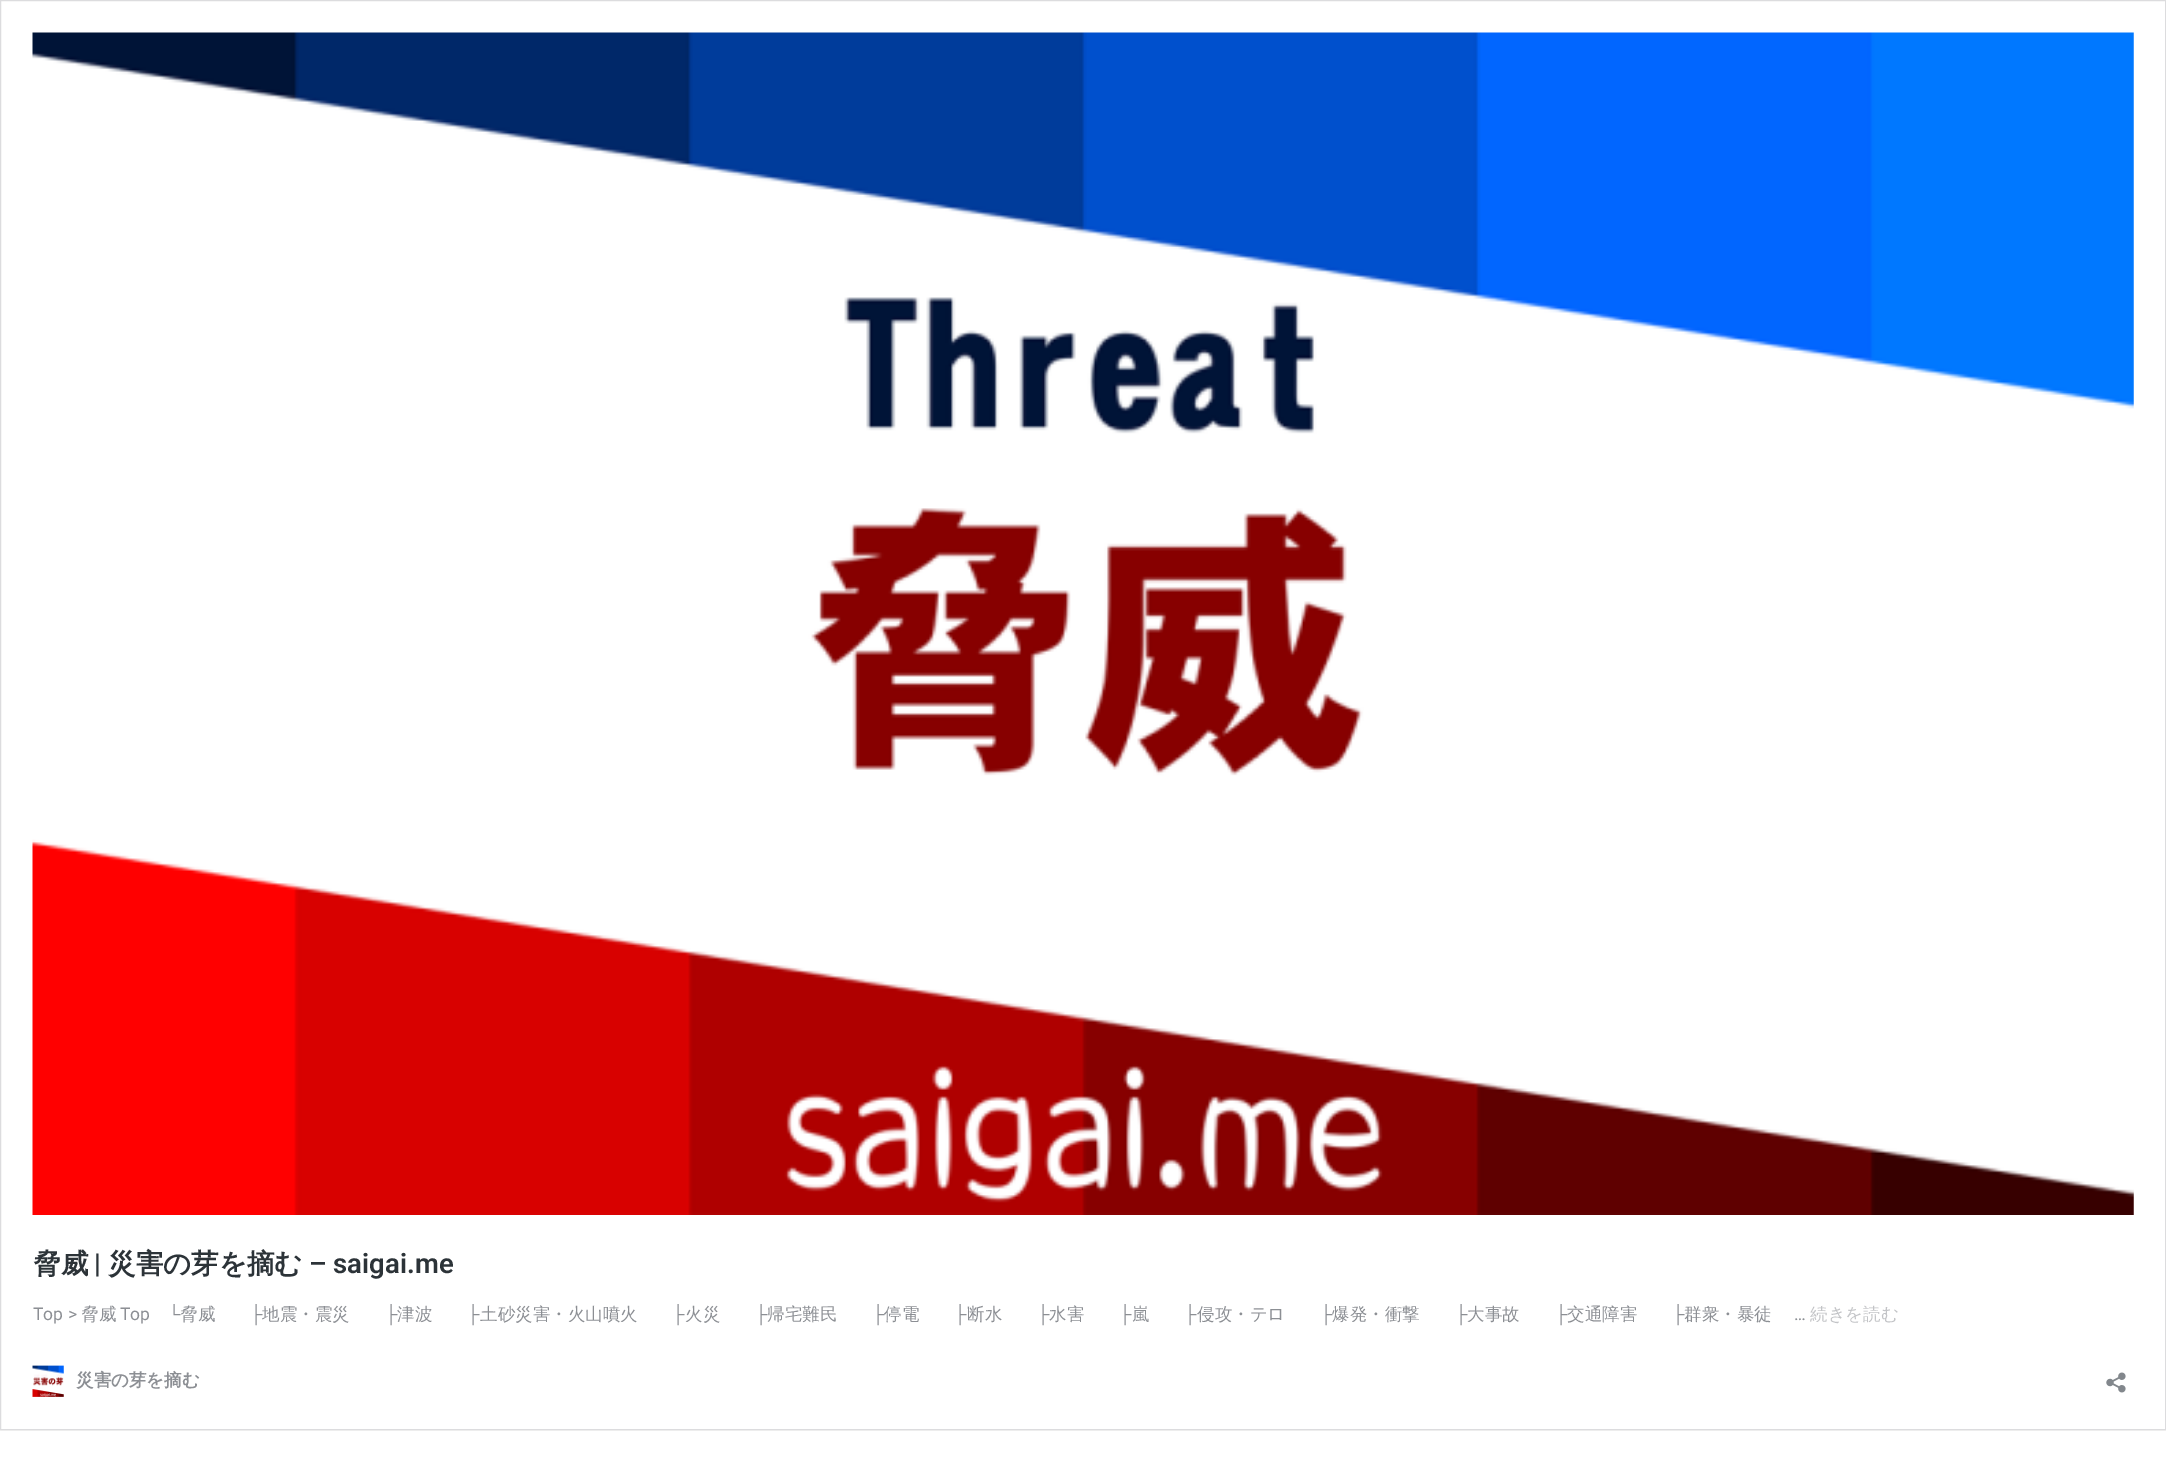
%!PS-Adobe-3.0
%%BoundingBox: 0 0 2166 1468
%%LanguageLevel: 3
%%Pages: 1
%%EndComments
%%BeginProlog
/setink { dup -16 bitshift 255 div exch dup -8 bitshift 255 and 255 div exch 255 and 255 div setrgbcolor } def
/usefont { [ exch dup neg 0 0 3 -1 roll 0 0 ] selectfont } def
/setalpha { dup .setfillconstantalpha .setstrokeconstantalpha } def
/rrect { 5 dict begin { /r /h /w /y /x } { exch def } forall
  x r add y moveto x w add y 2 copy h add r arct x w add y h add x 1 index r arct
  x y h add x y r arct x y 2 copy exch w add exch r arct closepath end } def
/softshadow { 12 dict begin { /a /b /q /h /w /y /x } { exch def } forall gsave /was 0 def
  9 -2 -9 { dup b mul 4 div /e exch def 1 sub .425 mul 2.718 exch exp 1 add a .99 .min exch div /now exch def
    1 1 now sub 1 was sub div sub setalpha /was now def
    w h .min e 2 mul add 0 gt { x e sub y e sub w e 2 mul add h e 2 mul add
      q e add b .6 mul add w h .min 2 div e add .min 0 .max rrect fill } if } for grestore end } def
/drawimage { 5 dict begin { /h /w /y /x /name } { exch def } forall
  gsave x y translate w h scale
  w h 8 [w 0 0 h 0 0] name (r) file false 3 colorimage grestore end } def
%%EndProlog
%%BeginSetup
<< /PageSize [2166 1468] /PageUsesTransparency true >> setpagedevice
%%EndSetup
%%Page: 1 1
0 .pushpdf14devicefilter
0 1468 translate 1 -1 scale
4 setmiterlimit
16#FFFFFF setink
0 0 2166 1468 rectfill
gsave
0 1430 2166 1 rectclip
16#000000 setink
0 1 2166 1430 0 0.5 0.05 softshadow
grestore
16#DCDCDE setink
0.5 0.5 2165 1429 rectstroke
(img1.raw) 32 32 2102 1183 drawimage
/WenQuanYiZenHei-Bold 27.5 usefont
16#2C3338 setink
33 1273 moveto (脅威) show
/Roboto-SemiBold 27.5 usefont
94 1273 moveto (|) show
/WenQuanYiZenHei-Bold 27.5 usefont
108 1273 moveto (災害の芽を摘む) show
/Roboto-SemiBold 27.5 usefont
309 1273 moveto (– saigai.me) show
/Roboto-Regular 17.5 usefont
16#8C8F94 setink
33 1320 moveto (Top >) show
/WenQuanYiZenHei-Medium 17.5 usefont
81 1320 moveto (脅威) show
/Roboto-Regular 17.5 usefont
120 1320 moveto (Top) show
/LiberationSans-Regular 17.5 usefont
168 1320 moveto (└) show
/WenQuanYiZenHei-Medium 17.5 usefont
180 1320 moveto (脅威) show
/LiberationSans-Regular 17.5 usefont
250 1320 moveto (├) show
/WenQuanYiZenHei-Medium 17.5 usefont
262 1320 moveto (地震・震災) show
/LiberationSans-Regular 17.5 usefont
385 1320 moveto (├) show
/WenQuanYiZenHei-Medium 17.5 usefont
397 1320 moveto (津波) show
/LiberationSans-Regular 17.5 usefont
467 1320 moveto (├) show
/WenQuanYiZenHei-Medium 17.5 usefont
480 1320 moveto (土砂災害・火山噴火) show
/LiberationSans-Regular 17.5 usefont
672 1320 moveto (├) show
/WenQuanYiZenHei-Medium 17.5 usefont
685 1320 moveto (火災) show
/LiberationSans-Regular 17.5 usefont
755 1320 moveto (├) show
/WenQuanYiZenHei-Medium 17.5 usefont
767 1320 moveto (帰宅難民) show
/LiberationSans-Regular 17.5 usefont
872 1320 moveto (├) show
/WenQuanYiZenHei-Medium 17.5 usefont
884 1320 moveto (停電) show
/LiberationSans-Regular 17.5 usefont
954 1320 moveto (├) show
/WenQuanYiZenHei-Medium 17.5 usefont
967 1320 moveto (断水) show
/LiberationSans-Regular 17.5 usefont
1037 1320 moveto (├) show
/WenQuanYiZenHei-Medium 17.5 usefont
1049 1320 moveto (水害) show
/LiberationSans-Regular 17.5 usefont
1119 1320 moveto (├) show
/WenQuanYiZenHei-Medium 17.5 usefont
1132 1320 moveto (嵐) show
/LiberationSans-Regular 17.5 usefont
1184 1320 moveto (├) show
/WenQuanYiZenHei-Medium 17.5 usefont
1197 1320 moveto (侵攻・テロ) show
/LiberationSans-Regular 17.5 usefont
1320 1320 moveto (├) show
/WenQuanYiZenHei-Medium 17.5 usefont
1332 1320 moveto (爆発・衝撃) show
/LiberationSans-Regular 17.5 usefont
1455 1320 moveto (├) show
/WenQuanYiZenHei-Medium 17.5 usefont
1467 1320 moveto (大事故) show
/LiberationSans-Regular 17.5 usefont
1555 1320 moveto (├) show
/WenQuanYiZenHei-Medium 17.5 usefont
1567 1320 moveto (交通障害) show
/LiberationSans-Regular 17.5 usefont
1672 1320 moveto (├) show
/WenQuanYiZenHei-Medium 17.5 usefont
1684 1320 moveto (群衆・暴徒) show
/Roboto-Regular 17.5 usefont
1794 1320 moveto (…) show
/WenQuanYiZenHei-Medium 17.5 usefont
16#C3C4C7 setink
1810 1320 moveto (続きを読む) show
(img2.raw) 32 1365 32 32 drawimage
/WenQuanYiZenHei-Bold 17.5 usefont
16#8C8F94 setink
76 1386 moveto (災害の芽を摘む) show
(img3.raw) 2106 1372 20 21 drawimage
.poppdf14devicefilter showpage
%%EOF
